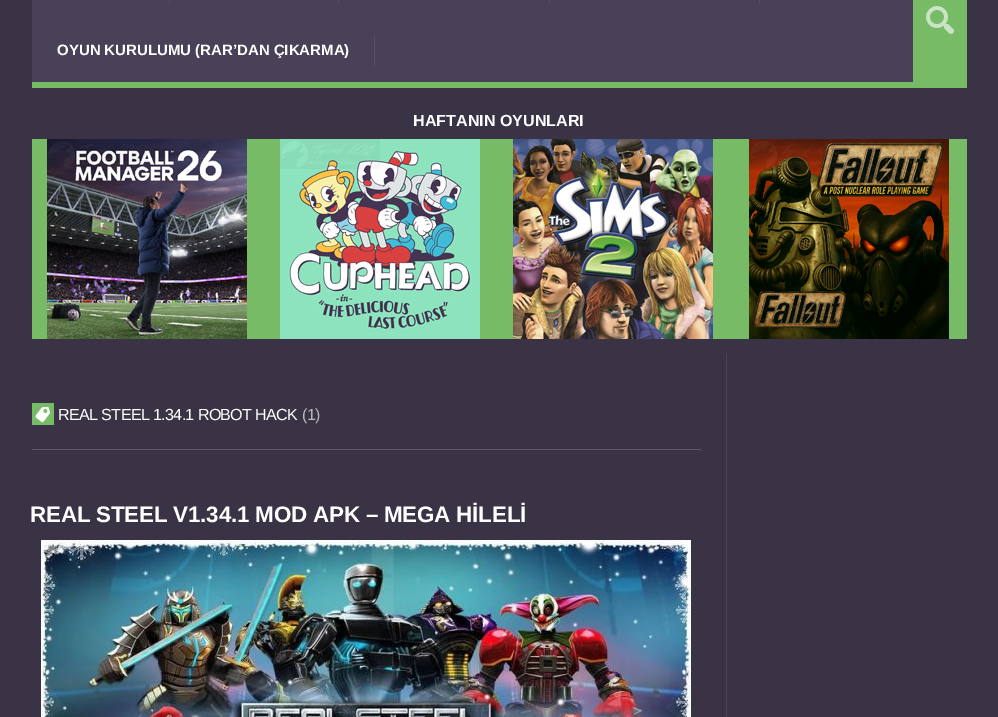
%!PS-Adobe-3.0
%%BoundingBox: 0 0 998 717
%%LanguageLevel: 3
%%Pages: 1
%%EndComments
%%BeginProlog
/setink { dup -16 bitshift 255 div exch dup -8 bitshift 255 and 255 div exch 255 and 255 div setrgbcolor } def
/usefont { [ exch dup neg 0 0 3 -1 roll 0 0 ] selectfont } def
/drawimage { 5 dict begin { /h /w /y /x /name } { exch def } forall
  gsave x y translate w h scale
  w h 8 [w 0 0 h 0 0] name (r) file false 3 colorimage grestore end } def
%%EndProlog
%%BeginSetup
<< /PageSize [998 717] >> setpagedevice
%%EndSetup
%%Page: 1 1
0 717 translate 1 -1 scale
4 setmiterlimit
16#3A3346 setink
0 0 998 717 rectfill
[
    [32 0 881 82 16#494158]
    [32 82 935 6 16#77BB66]
    [169 0 1 3 16#585164]
    [338 0 1 3 16#585164]
    [549 0 1 3 16#585164]
    [759 0 1 3 16#585164]
    [374 35 1 31 16#585164]
] { aload pop setink rectfill } forall
/LiberationSans-Bold 15 usefont
16#FFFFFF setink
57 55 moveto (OYUN KURULUMU \(RAR’DAN ÇIKARMA\)) show
16#77BB66 setink
913 0 54 82 rectfill
(img1.raw) 926 6 28 28 drawimage
/LiberationSans-Bold 16.1 usefont
16#FFFFFF setink
413 126 moveto (HAFTANIN OYUNLARI) show
16#77BB66 setink
32 139 935 200 rectfill
(img2.raw) 47 139 200 200 drawimage
(img3.raw) 280 139 200 200 drawimage
(img4.raw) 513 139 200 200 drawimage
(img5.raw) 749 139 200 200 drawimage
[
    [726 353 1 364 16#4B4555]
    [32 449 669 1 16#5C5765]
    [32 403 22 22 16#77BB66]
] { aload pop setink rectfill } forall
(img6.raw) 35 407 15 15 drawimage
/LiberationSans-Regular 16.1 usefont
16#FFFFFF setink
58 420 moveto -0.65 0 (REAL STEEL 1.34.1 ROBOT HACK) ashow
16#BAB8BE setink
302 420 moveto -0.65 0 (\(1\)) ashow
/LiberationSans-Bold 22.4 usefont
16#FFFFFF setink
30 522 moveto -0.2 0 (REAL STEEL V1.34.1 MOD APK – MEGA HİLELİ) ashow
(img7.raw) 41 540 650 177 drawimage
showpage
%%EOF
